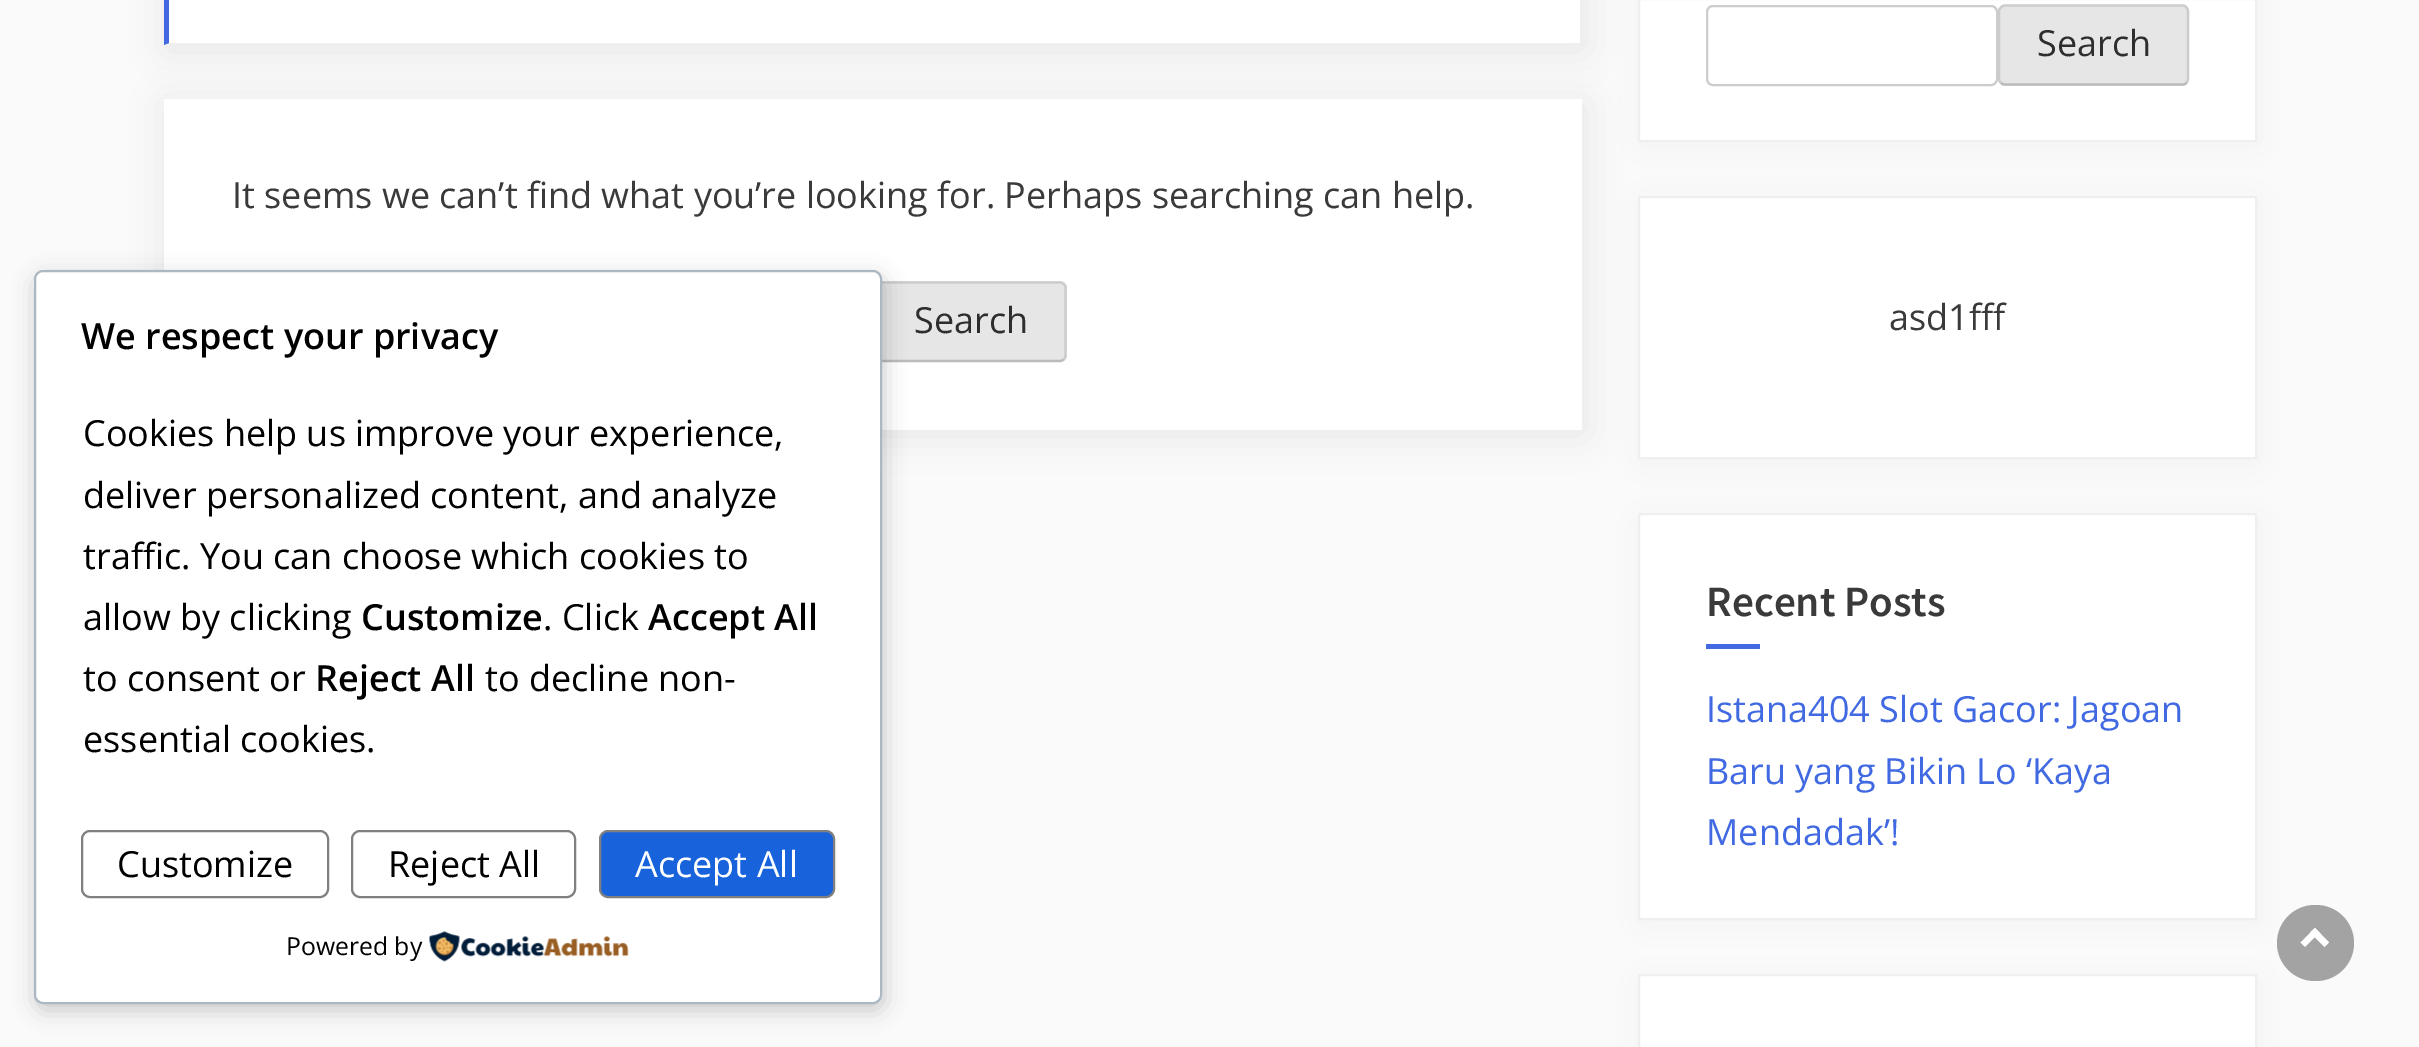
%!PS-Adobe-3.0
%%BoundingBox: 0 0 2419 1047
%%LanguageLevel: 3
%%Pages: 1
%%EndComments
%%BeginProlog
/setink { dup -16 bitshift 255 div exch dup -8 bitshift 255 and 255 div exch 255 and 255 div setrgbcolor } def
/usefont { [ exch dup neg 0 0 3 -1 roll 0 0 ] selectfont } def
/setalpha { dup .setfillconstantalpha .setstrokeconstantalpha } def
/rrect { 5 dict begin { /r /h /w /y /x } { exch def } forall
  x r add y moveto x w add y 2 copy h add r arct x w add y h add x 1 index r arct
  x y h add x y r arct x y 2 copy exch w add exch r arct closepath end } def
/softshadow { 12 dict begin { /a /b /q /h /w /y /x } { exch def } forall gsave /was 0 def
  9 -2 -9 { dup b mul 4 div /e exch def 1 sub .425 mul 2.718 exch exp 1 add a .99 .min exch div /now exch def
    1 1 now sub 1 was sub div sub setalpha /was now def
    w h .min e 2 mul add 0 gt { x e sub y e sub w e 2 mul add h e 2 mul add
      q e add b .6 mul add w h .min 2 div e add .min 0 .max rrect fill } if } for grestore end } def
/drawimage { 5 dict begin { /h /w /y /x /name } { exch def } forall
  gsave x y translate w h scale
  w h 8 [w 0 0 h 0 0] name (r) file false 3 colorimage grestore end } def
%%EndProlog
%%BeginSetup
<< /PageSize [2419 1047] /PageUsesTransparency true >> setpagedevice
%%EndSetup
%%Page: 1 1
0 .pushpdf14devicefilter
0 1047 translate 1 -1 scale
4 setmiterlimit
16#FAFAFA setink
0 0 2419 1047 rectfill
16#000000 setink
167 -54 1417 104 0 18 0.08 softshadow
16#FFFFFF setink
169 0 1411 43 rectfill
16#EFEFEF setink
1580 38 2 7 rectfill
1582 45 moveto 164 45 lineto 169 43 lineto 1580 43 lineto closepath fill
16#4169E1 setink
164 45 moveto 164 -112 lineto 169 -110 lineto 169 43 lineto closepath fill
16#000000 setink
167 104 1417 330 0 18 0.08 softshadow
16#FFFFFF setink
164 99 1418 331 rectfill
/OpenSans-Regular 36 usefont
16#3A3A3A setink
232 208 moveto (It seems we can’t find what you’re looking for. Perhaps searching can help.) show
16#E6E6E6 setink
875 281 192 81 7 rrect fill
16#BBBBBB setink
2.2 setlinewidth
1063.5 359.5 moveto 1062.5 360.5 1061 361 1060 361 curveto 882 361 lineto 880.5 361 879 360.5 878 359.5 curveto stroke
16#CCCCCC setink
878 359.5 moveto 877 358.5 876.5 357 876.5 355.5 curveto 876.5 288 lineto 876.5 286.5 877 285 878 284 curveto 879 283 880.5 282.5 882 282.5 curveto 1060 282.5 lineto 1061 282.5 1062.5 283 1063.5 284 curveto 1065 285 1065.5 286.5 1065.5 288 curveto 1065.5 355.5 lineto 1065.5 357 1065 358.5 1063.5 359.5 curveto stroke
16#2E2E2E setink
914 333 moveto (Search) show
16#000000 setink
1640 -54 619 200 0 18 0.04 softshadow
16#FFFFFF setink
1639 -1 moveto 2256 -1 lineto 2256 141 lineto 1639 141 lineto closepath gsave fill grestore
16#EFEFEF setink
2 setlinewidth
stroke
16#CCCCCC setink
1707 6 290 79 6 rrect stroke
16#E6E6E6 setink
1998 5 191 81 7 rrect fill
16#BBBBBB setink
2.2 setlinewidth
2186.5 82.5 moveto 2185.5 84 2184 84.5 2182.5 84.5 curveto 2005 84.5 lineto 2003.5 84.5 2002 84 2001 82.5 curveto stroke
16#CCCCCC setink
2001 82.5 moveto 1999.5 81.5 1999 80 1999 79 curveto 1999 11.5 lineto 1999 10 1999.5 8.5 2001 7.5 curveto 2002 6 2003.5 5.5 2005 5.5 curveto 2182.5 5.5 lineto 2184 5.5 2185.5 6 2186.5 7.5 curveto 2187.5 8.5 2188 10 2188 11 curveto 2188 79 lineto 2188 80 2187.5 81.5 2186.5 82.5 curveto stroke
16#2E2E2E setink
2037 56 moveto (Search) show
16#000000 setink
1640 200 619 264 0 18 0.04 softshadow
16#FFFFFF setink
1639 197 moveto 2256 197 lineto 2256 458 lineto 1639 458 lineto closepath gsave fill grestore
16#EFEFEF setink
2 setlinewidth
stroke
16#3A3A3A setink
1889 330 moveto (asd1fff) show
16#000000 setink
1640 518 619 407 0 18 0.04 softshadow
16#FFFFFF setink
1639 514 moveto 2256 514 lineto 2256 919 lineto 1639 919 lineto closepath gsave fill grestore
16#EFEFEF setink
stroke
/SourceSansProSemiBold-SemiBold 43.25 usefont
16#3A3A3A setink
1706 616 moveto (Recent Posts) show
16#4169E1 setink
1706 644 54 5 rectfill
/OpenSans-Regular 36 usefont
[
    [(Istana404 Slot Gacor: Jagoan) 1706 722]
    [(Baru yang Bikin Lo ‘Kaya) 1706 784]
    [(Mendadak’!) 1706 845]
] { aload pop moveto show } forall
16#000000 setink
1640 979 619 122 0 18 0.04 softshadow
16#FFFFFF setink
1639 975 moveto 2256 975 lineto 2256 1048 lineto 1639 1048 lineto closepath gsave fill grestore
16#EFEFEF setink
stroke
0.35 setalpha
16#000000 setink
2277 905 77 76 38 rrect fill
1 setalpha
16#FFFFFF setink
2305 947 moveto 2300.5 942.5 lineto 2315 928 lineto 2319.5 932.5 lineto closepath fill
2324.5 947 moveto 2310 932.5 lineto 2315 928 lineto 2329 942.5 lineto closepath fill
16#000000 setink
36 277 848 733 9 11 0.2 softshadow
16#FFFFFF setink
35 271 846 732 8 rrect gsave fill grestore
16#ABB8C3 setink
stroke
/OpenSans-SemiBold 36 usefont
16#000000 setink
81 349 moveto (We respect your privacy) show
/OpenSans-Regular 36 usefont
[
    [(Cookies help us improve your experience,) 83 446]
    [(deliver personalized content, and analyze) 83 508]
    [(traffic. You can choose which cookies to) 83 569]
    [(allow by clicking) 83 630]
] { aload pop moveto show } forall
/OpenSans-SemiBold 36 usefont
361 630 moveto (Customize) show
/OpenSans-Regular 36 usefont
543 630 moveto (. Click) show
/OpenSans-SemiBold 36 usefont
648 630 moveto (Accept All) show
/OpenSans-Regular 36 usefont
83 691 moveto (to consent or) show
/OpenSans-SemiBold 36 usefont
315 691 moveto (Reject All) show
/OpenSans-Regular 36 usefont
485 691 moveto (to decline non-) show
83 752 moveto (essential cookies.) show
16#808080 setink
82 831 246 66 8 rrect stroke
16#000000 setink
117 877 moveto (Customize) show
16#808080 setink
352 831 223 66 8 rrect stroke
16#000000 setink
388 877 moveto (Reject All) show
16#1863DC setink
600 831 234 66 8 rrect gsave fill grestore
16#808080 setink
stroke
16#FFFFFF setink
635 877 moveto (Accept All) show
/OpenSans-Regular 24.75 usefont
16#000000 setink
286 955 moveto (Powered by) show
(img1.raw) 429 931 200 31 drawimage
.poppdf14devicefilter showpage
%%EOF
